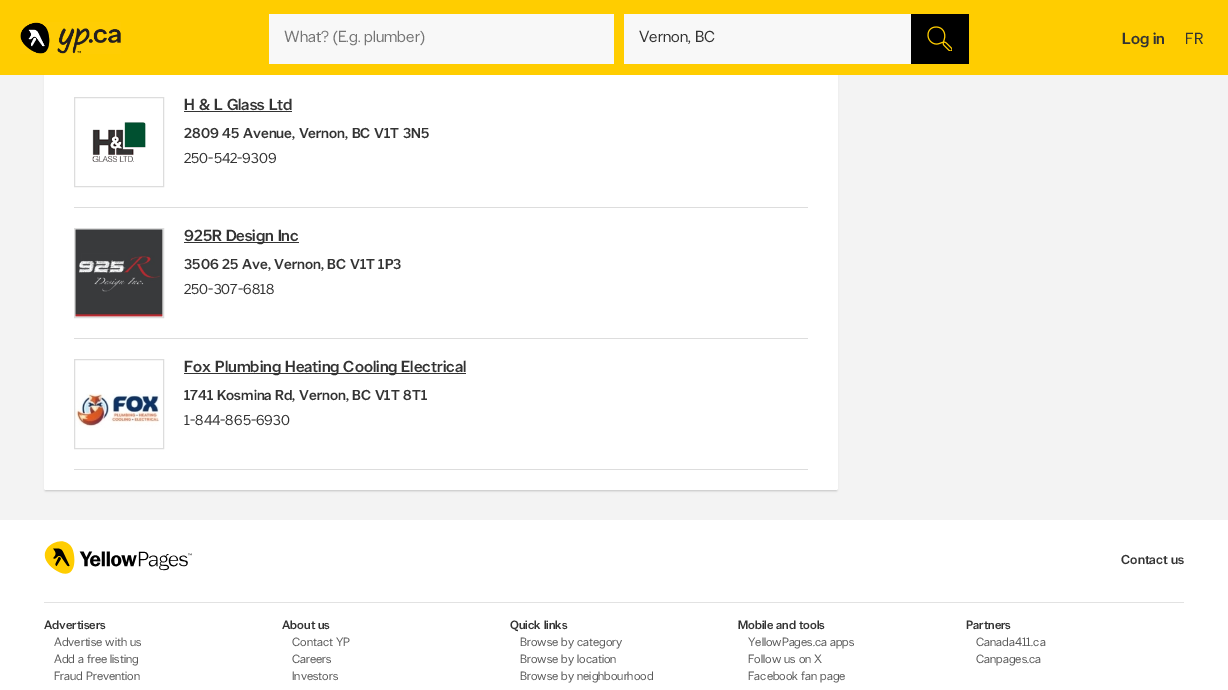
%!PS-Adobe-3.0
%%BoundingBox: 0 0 1228 690
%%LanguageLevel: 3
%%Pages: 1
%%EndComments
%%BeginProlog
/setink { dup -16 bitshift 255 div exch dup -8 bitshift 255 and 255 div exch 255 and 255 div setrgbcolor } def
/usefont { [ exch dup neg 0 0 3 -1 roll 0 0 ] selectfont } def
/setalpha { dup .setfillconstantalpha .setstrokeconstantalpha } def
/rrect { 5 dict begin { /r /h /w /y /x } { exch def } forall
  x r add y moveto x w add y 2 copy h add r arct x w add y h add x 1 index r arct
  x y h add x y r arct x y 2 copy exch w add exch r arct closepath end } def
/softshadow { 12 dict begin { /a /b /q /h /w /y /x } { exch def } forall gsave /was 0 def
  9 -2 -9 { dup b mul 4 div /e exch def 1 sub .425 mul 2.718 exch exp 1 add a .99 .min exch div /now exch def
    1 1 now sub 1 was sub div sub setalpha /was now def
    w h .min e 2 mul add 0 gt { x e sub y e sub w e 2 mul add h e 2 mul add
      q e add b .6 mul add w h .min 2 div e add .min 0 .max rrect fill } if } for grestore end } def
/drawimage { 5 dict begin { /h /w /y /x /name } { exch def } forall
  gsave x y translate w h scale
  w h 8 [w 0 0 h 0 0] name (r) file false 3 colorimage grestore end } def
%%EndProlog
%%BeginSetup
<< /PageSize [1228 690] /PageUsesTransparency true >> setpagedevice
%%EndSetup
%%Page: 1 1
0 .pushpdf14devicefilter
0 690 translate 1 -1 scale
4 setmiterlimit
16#F3F3F3 setink
0 0 1228 690 rectfill
16#000000 setink
45 37 792 454 1 1 0.2 softshadow
16#FFFFFF setink
44 34 794 456 2 rrect fill
16#FFCD00 setink
0 0 1228 75 rectfill
(img1.raw) 20 22 101 32 drawimage
16#F8F8F8 setink
269 14 345 50 rectfill
/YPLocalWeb-Regular 16 usefont
16#757575 setink
284 42 moveto (What? \(E.g. plumber\)) show
16#F8F8F8 setink
624 14 287 50 rectfill
16#333333 setink
639 42 moveto (Vernon, BC) show
16#000000 setink
911 14 58 50 rectfill
(img2.raw) 927 26 25 25 drawimage
/YPLocalWeb-Medium 16 usefont
16#333333 setink
1122 44 moveto (Log in) show
/YPLocalWeb-Regular 16 usefont
1185 44 moveto (FR) show
16#DDDDDD setink
74 207 734 1 rectfill
(img3.raw) 92 122 54 40 drawimage
74.5 97.5 89 89 rectstroke
/YPLocalWeb-Medium 16 usefont
16#333333 setink
184 110 moveto (H & L Glass Ltd) show
184 111 108 1 rectfill
/YPLocalWeb-Medium 14.4 usefont
184 138 moveto (2809 45 Avenue, Vernon, BC V1T 3N5) show
/YPLocalWeb-Regular 14.4 usefont
184 163 moveto (250-542-9309) show
16#DDDDDD setink
74 338 734 1 rectfill
(img4.raw) 75 229 88 88 drawimage
74.5 228.5 89 89 rectstroke
16#333333 setink
184 242 115 1 rectfill
/YPLocalWeb-Medium 16 usefont
184 241 moveto (925R Design Inc) show
/YPLocalWeb-Medium 14.4 usefont
184 269 moveto (3506 25 Ave, Vernon, BC V1T 1P3) show
/YPLocalWeb-Regular 14.4 usefont
184 294 moveto (250-307-6818) show
16#DDDDDD setink
74 469 734 1 rectfill
(img5.raw) 75 393 85 35 drawimage
74.5 359.5 89 89 rectstroke
16#333333 setink
184 373 282 1 rectfill
/YPLocalWeb-Medium 16 usefont
184 372 moveto (Fox Plumbing Heating Cooling Electrical) show
/YPLocalWeb-Medium 14.4 usefont
184 400 moveto (1741 Kosmina Rd, Vernon, BC V1T 8T1) show
/YPLocalWeb-Regular 14.4 usefont
184 425 moveto (1-844-865-6930) show
16#FFFFFF setink
0 520 1228 170 rectfill
(img6.raw) 44 541 148 33 drawimage
/YPLocalWeb-Medium 13 usefont
16#333333 setink
1121 564 moveto (Contact us) show
16#E2E2E2 setink
44 602 1140 1 rectfill
/YPLocalWeb-Medium 12 usefont
16#333333 setink
44 629 moveto (Advertisers) show
/YPLocalWeb-Regular 12 usefont
16#585858 setink
[
    [(Advertise with us) 54 646]
    [(Add a free listing) 54 663]
    [(Fraud Prevention) 54 680]
] { aload pop moveto show } forall
/YPLocalWeb-Medium 12 usefont
16#333333 setink
282 629 moveto (About us) show
/YPLocalWeb-Regular 12 usefont
16#585858 setink
[
    [(Contact YP) 292 646]
    [(Careers) 292 663]
    [(Investors) 292 680]
] { aload pop moveto show } forall
/YPLocalWeb-Medium 12 usefont
16#333333 setink
510 629 moveto (Quick links) show
/YPLocalWeb-Regular 12 usefont
16#585858 setink
[
    [(Browse by category) 520 646]
    [(Browse by location) 520 663]
    [(Browse by neighbourhood) 520 680]
] { aload pop moveto show } forall
/YPLocalWeb-Medium 12 usefont
16#333333 setink
738 629 moveto (Mobile and tools) show
/YPLocalWeb-Regular 12 usefont
16#585858 setink
[
    [(YellowPages.ca apps) 748 646]
    [(Follow us on X) 748 663]
    [(Facebook fan page) 748 680]
] { aload pop moveto show } forall
/YPLocalWeb-Medium 12 usefont
16#333333 setink
966 629 moveto (Partners) show
/YPLocalWeb-Regular 12 usefont
16#585858 setink
976 646 moveto (Canada411.ca) show
976 663 moveto (Canpages.ca) show
.poppdf14devicefilter showpage
%%EOF
